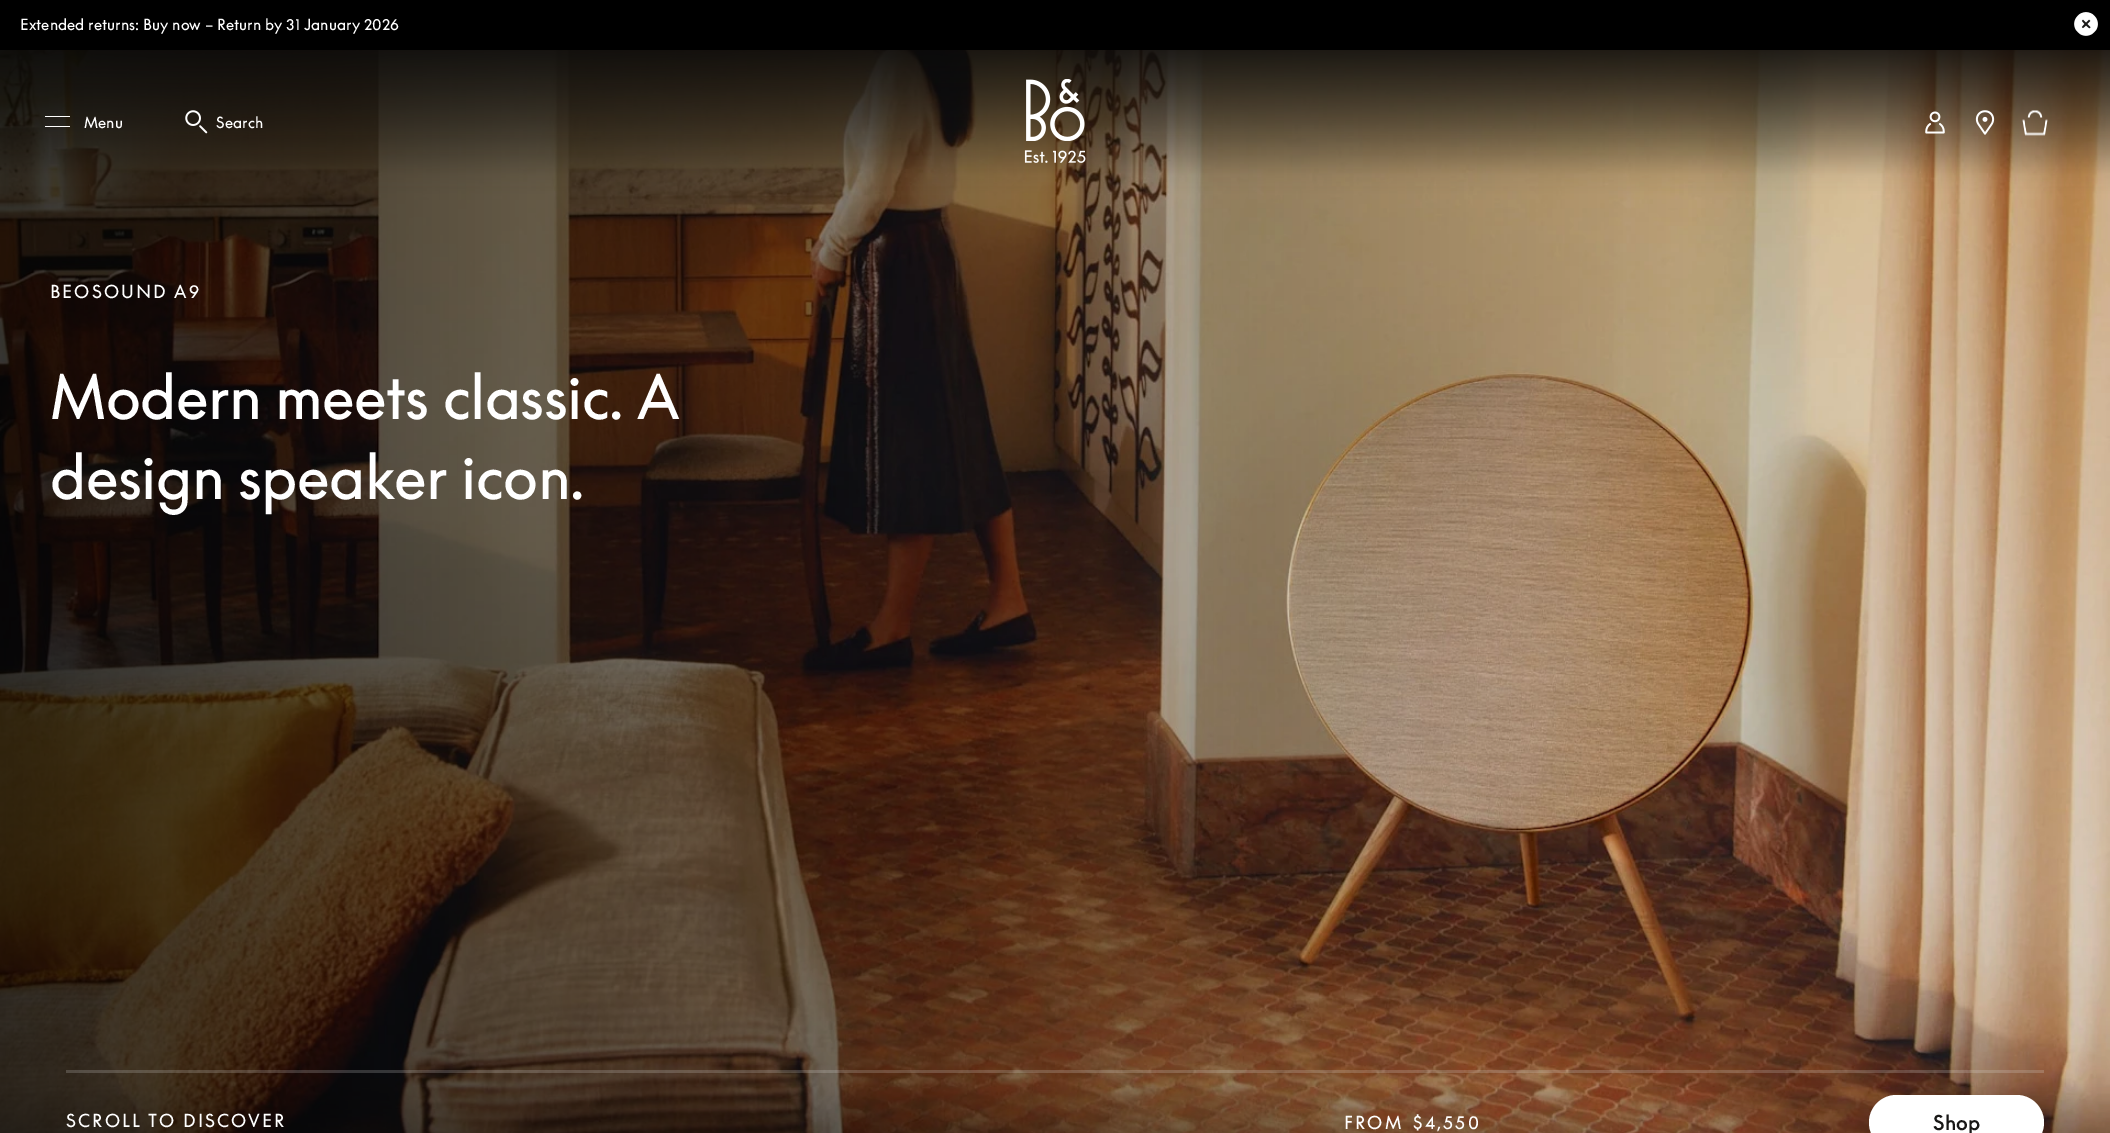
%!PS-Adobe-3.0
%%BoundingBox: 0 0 2110 1133
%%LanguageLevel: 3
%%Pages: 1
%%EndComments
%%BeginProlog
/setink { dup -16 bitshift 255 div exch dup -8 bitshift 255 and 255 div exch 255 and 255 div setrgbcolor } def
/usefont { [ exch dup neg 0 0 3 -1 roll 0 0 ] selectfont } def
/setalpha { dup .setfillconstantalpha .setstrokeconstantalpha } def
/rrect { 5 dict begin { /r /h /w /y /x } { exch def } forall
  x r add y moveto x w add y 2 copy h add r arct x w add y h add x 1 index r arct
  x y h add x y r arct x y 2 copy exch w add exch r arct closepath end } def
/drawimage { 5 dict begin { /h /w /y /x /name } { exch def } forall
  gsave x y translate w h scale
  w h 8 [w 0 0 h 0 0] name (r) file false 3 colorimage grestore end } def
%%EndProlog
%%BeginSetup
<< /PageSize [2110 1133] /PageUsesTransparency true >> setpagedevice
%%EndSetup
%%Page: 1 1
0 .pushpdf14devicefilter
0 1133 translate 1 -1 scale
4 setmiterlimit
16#FFFFFF setink
0 0 2110 1133 rectfill
16#000000 setink
0 0 2110 50 rectfill
/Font-Regular 15 usefont
16#FFFFFF setink
20 30 moveto 0.12 0 (Extended returns: Buy now – Return by 31 January 2026) ashow
16#191817 setink
2075 13 23 22 11 rrect fill
(img1.raw) 2074 12 24 24 drawimage
(img8.raw) 0 50 2110 1083 drawimage
16#FFFFFF setink
45 116 25 1 rectfill
45 126 25 1 rectfill
84 128 moveto 0.12 0 (Menu) ashow
(img2.raw) 185 110 23 24 drawimage
216 128 moveto 0.12 0 (Search) ashow
(img3.raw) 1026 79 59 62 drawimage
(img4.raw) 1024 150 62 13 drawimage
(img5.raw) 1925 111 20 23 drawimage
(img6.raw) 1975 110 20 25 drawimage
(img7.raw) 2022 110 26 26 drawimage
/Font-Regular 17.5 usefont
50 298 moveto 2.1 0 (BEOSOUND A9) ashow
/Font-Regular 60 usefont
50 419 moveto -0.6 0 (Modern meets classic. A) ashow
50 499 moveto -0.6 0 (design speaker icon.) ashow
0.2 setalpha
16#E5E5E5 setink
66 1070 1978 3 rectfill
/Font-Regular 17.5 usefont
1 setalpha
16#FFFFFF setink
66 1127 moveto 2.1 0 (SCROLL TO DISCOVER) ashow
1344 1129 moveto 2.1 0 (FROM) ashow
1413 1129 moveto 2.1 0 ($4,550) ashow
1869 1095 175 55 27.5 rrect fill
/Font-Medium 20 usefont
16#191817 setink
1933 1130 moveto 0.12 0 (Shop) ashow
.poppdf14devicefilter showpage
%%EOF
